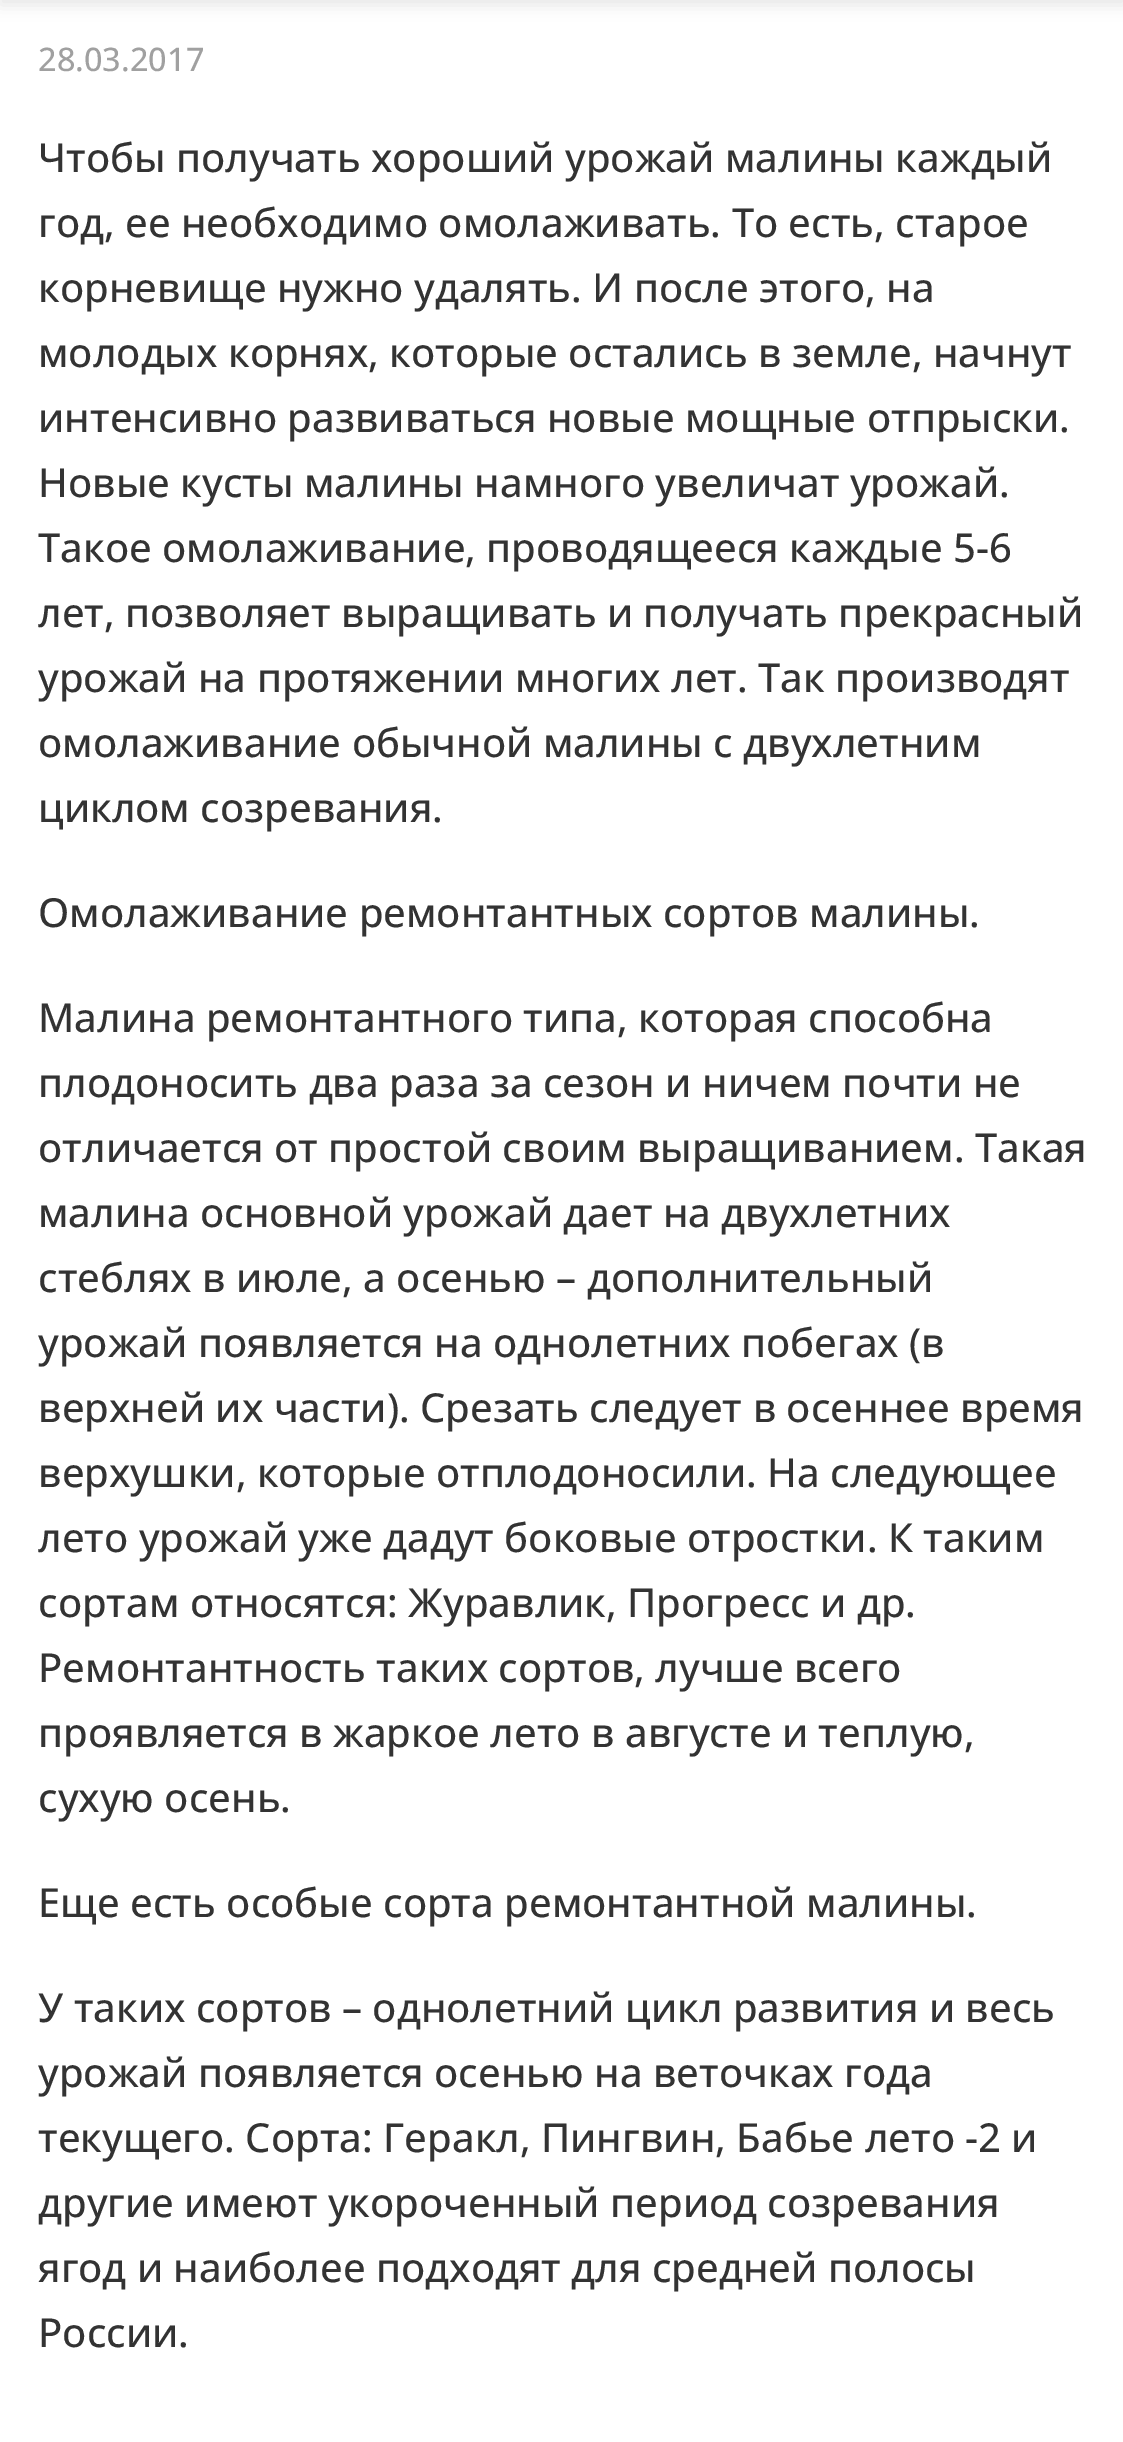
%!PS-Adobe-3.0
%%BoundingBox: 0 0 1123 2442
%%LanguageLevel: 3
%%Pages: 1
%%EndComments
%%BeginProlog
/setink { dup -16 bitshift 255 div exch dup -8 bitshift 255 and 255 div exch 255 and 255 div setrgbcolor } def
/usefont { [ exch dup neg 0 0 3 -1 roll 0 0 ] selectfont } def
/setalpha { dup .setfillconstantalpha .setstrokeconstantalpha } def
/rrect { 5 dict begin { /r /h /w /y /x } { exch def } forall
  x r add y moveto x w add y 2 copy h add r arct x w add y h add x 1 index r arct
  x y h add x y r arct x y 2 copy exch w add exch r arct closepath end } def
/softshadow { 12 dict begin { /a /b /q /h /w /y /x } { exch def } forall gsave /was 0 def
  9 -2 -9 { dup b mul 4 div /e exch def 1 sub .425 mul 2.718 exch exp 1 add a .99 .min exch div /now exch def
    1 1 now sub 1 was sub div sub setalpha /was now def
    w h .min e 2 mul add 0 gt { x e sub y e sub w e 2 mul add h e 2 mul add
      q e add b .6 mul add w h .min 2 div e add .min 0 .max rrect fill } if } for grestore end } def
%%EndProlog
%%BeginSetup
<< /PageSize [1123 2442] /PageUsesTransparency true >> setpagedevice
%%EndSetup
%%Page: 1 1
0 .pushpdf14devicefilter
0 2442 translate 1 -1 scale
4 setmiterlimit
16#FFFFFF setink
0 0 1123 2442 rectfill
16#000000 setink
0 -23 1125 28 0 7.5 0.1 softshadow
/OpenSans-Medium 32.5 usefont
16#A0A0A0 setink
38 71 moveto (28.03.2017) show
/OpenSans-Medium 40 usefont
16#333333 setink
[
    [(Чтобы получать хороший урожай малины каждый) 38 172]
    [(год, ее необходимо омолаживать. То есть, старое) 38 237]
    [(корневище нужно удалять. И после этого, на) 38 302]
    [(молодых корнях, которые остались в земле, начнут) 38 367]
    [(интенсивно развиваться новые мощные отпрыски.) 38 432]
    [(Новые кусты малины намного увеличат урожай.) 38 497]
    [(Такое омолаживание, проводящееся каждые 5-6) 38 562]
    [(лет, позволяет выращивать и получать прекрасный) 38 627]
    [(урожай на протяжении многих лет. Так производят) 38 692]
    [(омолаживание обычной малины с двухлетним) 38 757]
    [(циклом созревания.) 38 822]
    [(Омолаживание ремонтантных сортов малины.) 38 927]
    [(Малина ремонтантного типа, которая способна) 38 1032]
    [(плодоносить два раза за сезон и ничем почти не) 38 1097]
    [(отличается от простой своим выращиванием. Такая) 38 1162]
    [(малина основной урожай дает на двухлетних) 38 1227]
    [(стеблях в июле, а осенью – дополнительный) 38 1292]
    [(урожай появляется на однолетних побегах \(в) 38 1357]
    [(верхней их части\). Срезать следует в осеннее время) 38 1422]
    [(верхушки, которые отплодоносили. На следующее) 38 1487]
    [(лето урожай уже дадут боковые отростки. К таким) 38 1552]
    [(сортам относятся: Журавлик, Прогресс и др.) 38 1617]
    [(Ремонтантность таких сортов, лучше всего) 38 1682]
    [(проявляется в жаркое лето в августе и теплую,) 38 1747]
    [(сухую осень.) 38 1812]
    [(Еще есть особые сорта ремонтантной малины.) 38 1917]
    [(У таких сортов – однолетний цикл развития и весь) 38 2022]
    [(урожай появляется осенью на веточках года) 38 2087]
    [(текущего. Сорта: Геракл, Пингвин, Бабье лето -2 и) 38 2152]
    [(другие имеют укороченный период созревания) 38 2217]
    [(ягод и наиболее подходят для средней полосы) 38 2282]
    [(России.) 38 2347]
] { aload pop moveto show } forall
.poppdf14devicefilter showpage
%%EOF
